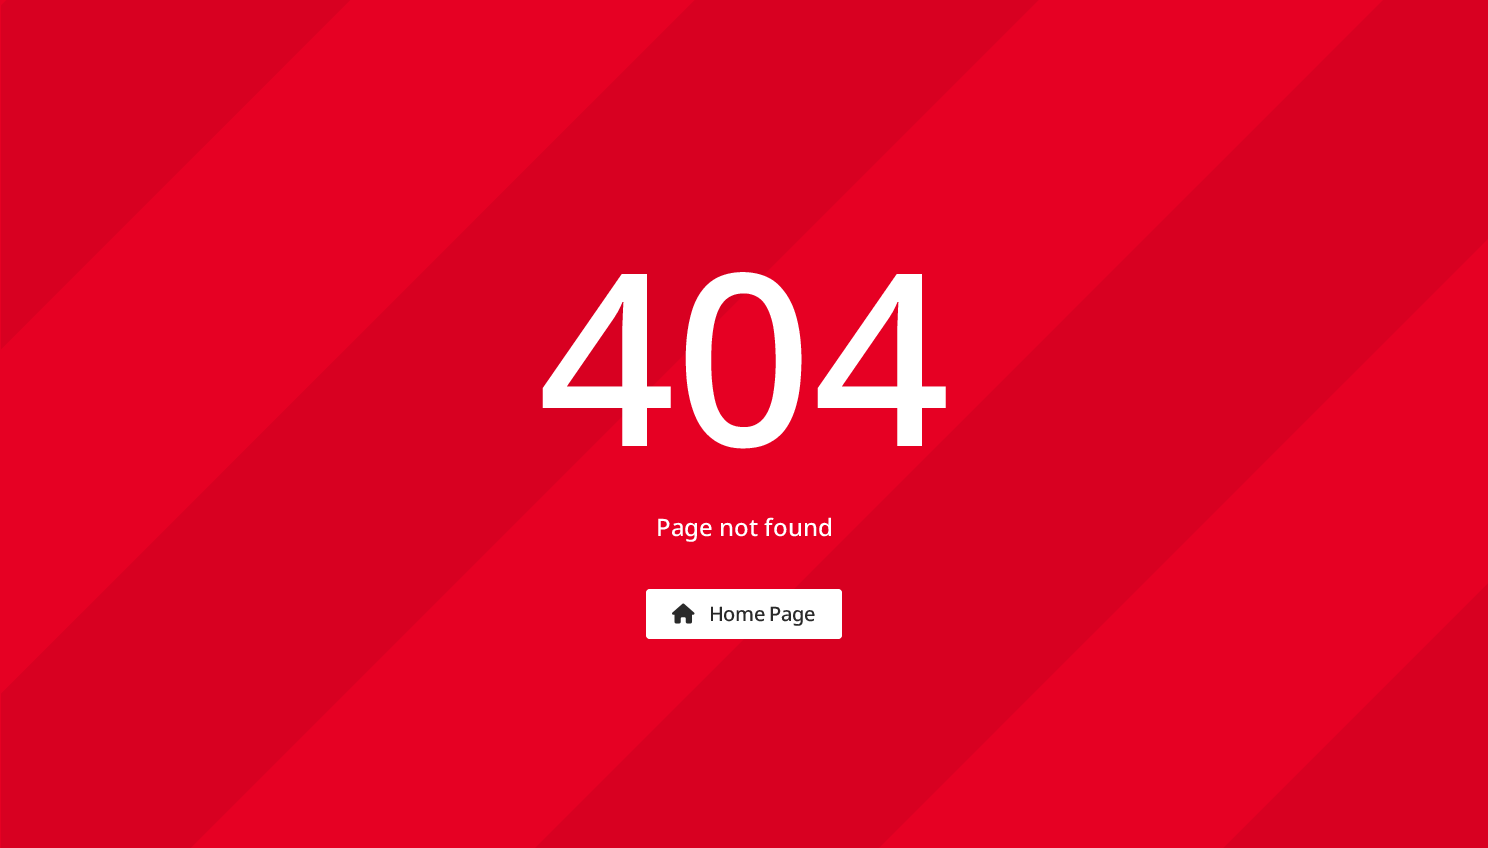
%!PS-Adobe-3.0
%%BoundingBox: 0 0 1488 848
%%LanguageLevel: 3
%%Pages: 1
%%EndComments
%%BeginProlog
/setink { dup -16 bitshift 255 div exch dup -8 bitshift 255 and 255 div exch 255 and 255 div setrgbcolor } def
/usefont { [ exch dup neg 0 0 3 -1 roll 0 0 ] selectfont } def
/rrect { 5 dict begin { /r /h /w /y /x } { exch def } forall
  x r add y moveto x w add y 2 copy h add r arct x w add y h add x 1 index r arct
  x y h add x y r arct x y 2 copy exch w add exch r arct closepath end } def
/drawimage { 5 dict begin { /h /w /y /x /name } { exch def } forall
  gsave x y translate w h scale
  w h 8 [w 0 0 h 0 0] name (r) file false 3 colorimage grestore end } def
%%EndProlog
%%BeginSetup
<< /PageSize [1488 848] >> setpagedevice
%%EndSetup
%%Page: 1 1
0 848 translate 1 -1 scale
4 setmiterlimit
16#E60023 setink
0 0 1488 848 rectfill
(img1.raw) 1 0 1487 848 drawimage
/NotoSans-Medium 240 usefont
16#FFFFFF setink
538 446 moveto (404) show
/NotoSans-Medium 24 usefont
656 536 moveto (Page not found) show
646 589 196 50 4 rrect fill
(img2.raw) 672 603 23 21 drawimage
/NotoSans-Medium 20 usefont
16#2A2A2A setink
709 621 moveto -0.5 0 (Home Page) ashow
showpage
%%EOF
